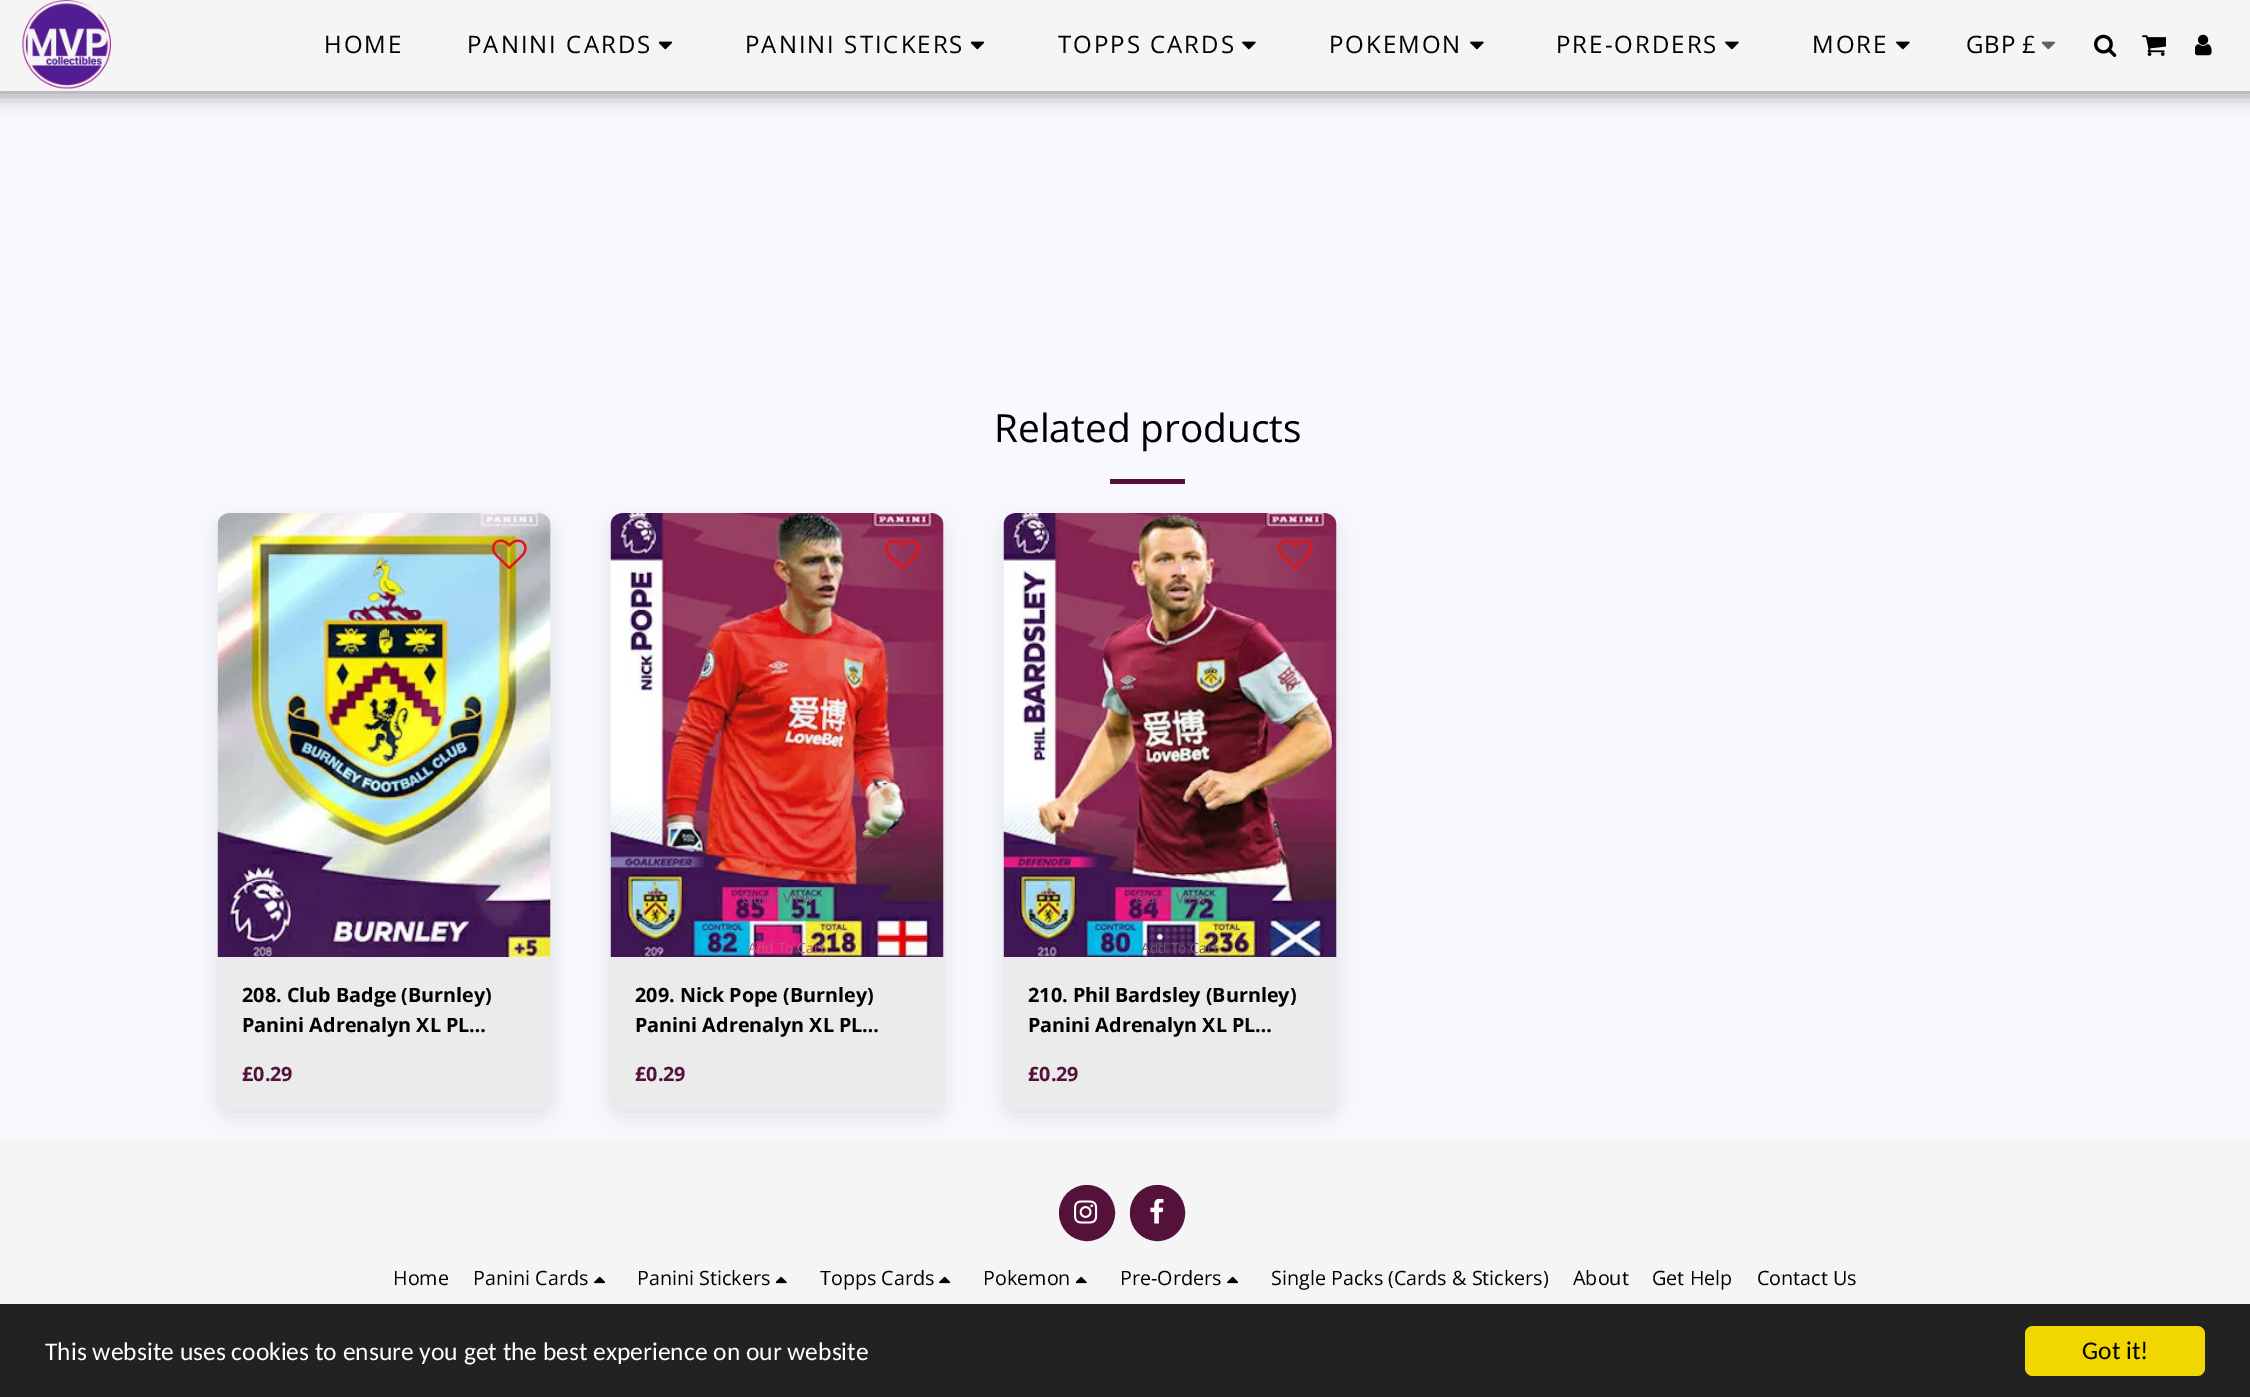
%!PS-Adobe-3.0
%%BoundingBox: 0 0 2250 1397
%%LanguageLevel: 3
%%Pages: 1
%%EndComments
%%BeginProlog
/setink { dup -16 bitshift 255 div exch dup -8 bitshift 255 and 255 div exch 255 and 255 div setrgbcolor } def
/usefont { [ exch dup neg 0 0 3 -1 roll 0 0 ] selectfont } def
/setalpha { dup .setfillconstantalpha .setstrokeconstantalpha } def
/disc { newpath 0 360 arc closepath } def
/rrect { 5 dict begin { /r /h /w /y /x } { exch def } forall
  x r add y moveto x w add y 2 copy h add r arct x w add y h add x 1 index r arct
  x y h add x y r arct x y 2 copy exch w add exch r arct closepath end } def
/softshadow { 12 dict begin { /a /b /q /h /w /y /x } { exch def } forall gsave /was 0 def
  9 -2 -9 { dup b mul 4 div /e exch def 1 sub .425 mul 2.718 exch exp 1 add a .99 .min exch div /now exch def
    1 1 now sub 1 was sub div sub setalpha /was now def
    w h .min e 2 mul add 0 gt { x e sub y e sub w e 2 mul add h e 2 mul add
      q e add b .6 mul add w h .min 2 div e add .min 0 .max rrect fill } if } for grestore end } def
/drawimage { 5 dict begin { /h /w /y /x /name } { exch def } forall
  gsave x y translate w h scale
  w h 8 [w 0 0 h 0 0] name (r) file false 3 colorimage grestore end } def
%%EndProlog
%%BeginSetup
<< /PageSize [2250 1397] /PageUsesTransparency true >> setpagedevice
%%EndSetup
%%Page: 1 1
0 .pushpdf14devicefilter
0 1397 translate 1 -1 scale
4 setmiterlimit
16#F8F8FF setink
0 0 2250 1397 rectfill
16#000000 setink
-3 0 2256 96 0 9 0.35 softshadow
16#F6F5F5 setink
0 0 2250 91 rectfill
(img1.raw) 22 0 89 89 drawimage
/OpenSans-Regular 24 usefont
16#000000 setink
324 53 moveto 2 0 (HOME) ashow
467 53 moveto 2 0 (PANINI CARDS) ashow
(img2.raw) 659 41 13 9 drawimage
745 53 moveto 2 0 (PANINI STICKERS) ashow
(img2.raw) 971 41 13 9 drawimage
1058 53 moveto 2 0 (TOPPS CARDS) ashow
(img3.raw) 1242 41 14 9 drawimage
1329 53 moveto 2 0 (POKEMON) ashow
(img3.raw) 1470 41 14 9 drawimage
1556 53 moveto 2 0 (PRE-ORDERS) ashow
(img3.raw) 1725 41 14 9 drawimage
1812 53 moveto 2 0 (MORE) ashow
(img3.raw) 1896 41 14 9 drawimage
1966 53 moveto 1 0 (GBP) ashow
2022 53 moveto 1 0 (£) ashow
(img4.raw) 2042 41 14 9 drawimage
(img5.raw) 2094 34 23 23 drawimage
(img6.raw) 2142 35 24 21 drawimage
(img7.raw) 2195 34 17 22 drawimage
/OpenSans-Regular 38.75 usefont
994 442 moveto (Related products) show
16#54123B setink
1110 479 75 5 rectfill
16#F6F5F5 setink
0 1139 2250 165 rectfill
16#818181 setink
218 521 333 595 12 11 0.2 softshadow
16#EBEBEB setink
218 513 333 596 12 rrect fill
(img8.raw) 217 513 334 444 drawimage
(img9.raw) 492 539 35 31 drawimage
/OpenSans-Bold 19.75 usefont
16#000000 setink
242 1002 moveto (208. Club Badge \(Burnley\)) show
242 1032 moveto (Panini Adrenalyn XL PL…) show
16#54123B setink
242 1081 moveto (£0.29) show
16#818181 setink
611 521 333 595 12 11 0.2 softshadow
16#EBEBEB setink
611 513 333 596 12 rrect fill
(img10.raw) 610 513 334 444 drawimage
(img11.raw) 885 539 35 31 drawimage
/OpenSans-Regular 14 usefont
16#7D4E78 setink
742 903 moveto (Quick View) show
16#C3547E setink
748 953 moveto (Add To Cart) show
/OpenSans-Bold 19.75 usefont
16#000000 setink
635 1002 moveto (209. Nick Pope \(Burnley\)) show
635 1032 moveto (Panini Adrenalyn XL PL…) show
16#54123B setink
635 1081 moveto (£0.29) show
16#818181 setink
1004 521 333 595 12 11 0.2 softshadow
16#EBEBEB setink
1004 513 333 596 12 rrect fill
(img12.raw) 1003 513 334 444 drawimage
(img13.raw) 1278 539 35 31 drawimage
/OpenSans-Regular 14 usefont
16#7D4E78 setink
1135 903 moveto (Quick View) show
16#70596A setink
1141 953 moveto (Add To Cart) show
/OpenSans-Bold 19.75 usefont
16#000000 setink
1028 1002 moveto (210. Phil Bardsley \(Burnley\)) show
1028 1032 moveto (Panini Adrenalyn XL PL…) show
16#54123B setink
1028 1081 moveto (£0.29) show
1087 1213 27 disc gsave fill grestore
2 setlinewidth
stroke
(img14.raw) 1074 1200 24 24 drawimage
1131 1186 53 54 26.5 rrect gsave fill grestore
stroke
(img15.raw) 1150 1199 14 25 drawimage
/OpenSans-Regular 19.75 usefont
16#000000 setink
393 1285 moveto (Home) show
473 1285 moveto (Panini Cards) show
(img16.raw) 594 1276 11 8 drawimage
637 1285 moveto (Panini Stickers) show
(img17.raw) 776 1276 11 8 drawimage
820 1285 moveto (Topps Cards) show
(img18.raw) 939 1276 12 8 drawimage
983 1285 moveto (Pokemon) show
(img17.raw) 1076 1276 11 8 drawimage
1120 1285 moveto (Pre-Orders) show
(img16.raw) 1227 1276 11 8 drawimage
[
    [(Single Packs \(Cards & Stickers\)) 1271 1285]
    [(About) 1573 1285]
    [(Get Help) 1652 1285]
    [(Contact Us) 1757 1285]
] { aload pop moveto show } forall
16#222222 setink
0 1304 2250 93 rectfill
/Carlito-Regular 25.5 usefont
16#FFFFFF setink
45 1360 moveto (This website uses cookies to ensure you get the best experience on our website) show
16#F1D600 setink
2025 1326 180 50 8 rrect fill
16#000000 setink
2082 1359 moveto (Got it!) show
.poppdf14devicefilter showpage
%%EOF
